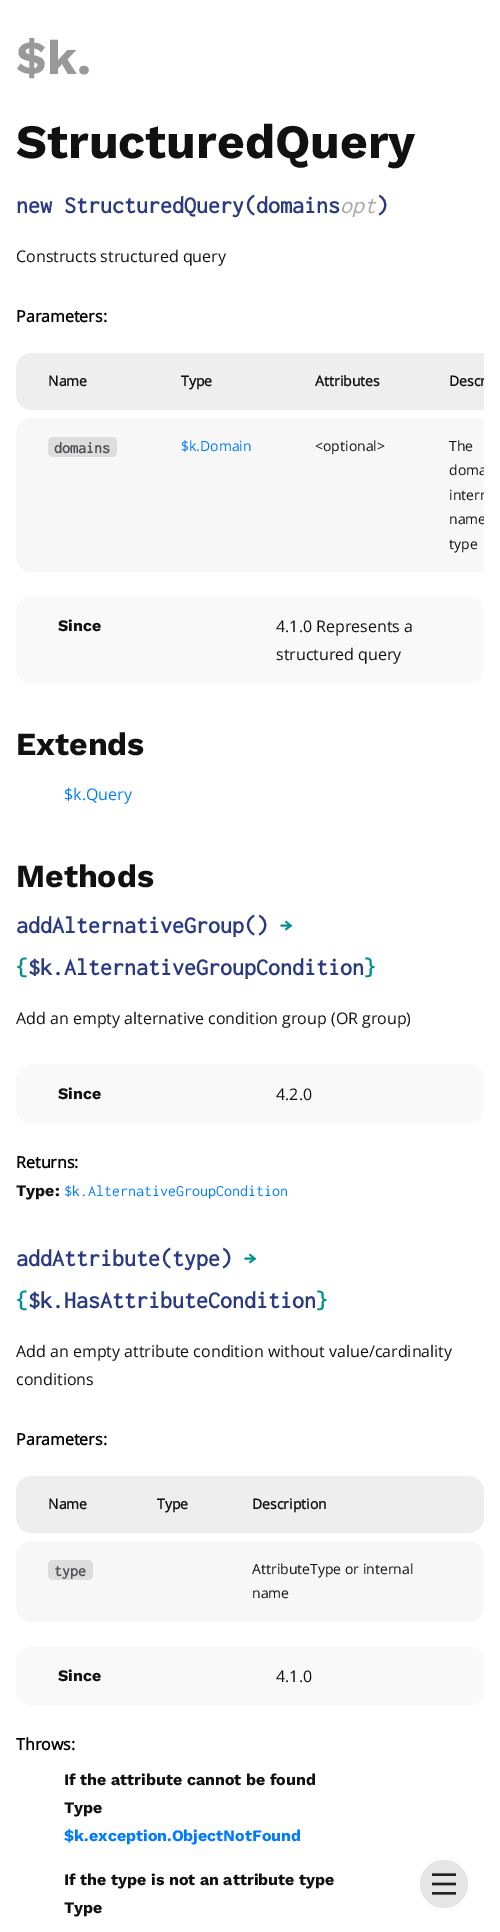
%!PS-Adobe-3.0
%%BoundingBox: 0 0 500 1932
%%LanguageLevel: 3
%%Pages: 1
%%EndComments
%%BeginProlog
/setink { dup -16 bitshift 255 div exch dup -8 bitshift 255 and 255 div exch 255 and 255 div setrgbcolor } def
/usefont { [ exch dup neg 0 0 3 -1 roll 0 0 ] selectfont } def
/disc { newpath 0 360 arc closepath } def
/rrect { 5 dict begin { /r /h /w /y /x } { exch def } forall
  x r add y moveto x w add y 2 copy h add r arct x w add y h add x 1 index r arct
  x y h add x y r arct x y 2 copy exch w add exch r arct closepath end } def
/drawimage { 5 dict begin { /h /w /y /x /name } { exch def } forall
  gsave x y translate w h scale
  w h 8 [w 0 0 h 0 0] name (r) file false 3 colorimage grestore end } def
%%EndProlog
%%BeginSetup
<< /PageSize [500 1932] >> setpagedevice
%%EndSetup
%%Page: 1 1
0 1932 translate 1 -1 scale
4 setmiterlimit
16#FFFFFF setink
0 0 500 1932 rectfill
/WorkSans-Bold 48 usefont
16#999999 setink
16 74 moveto ($k.) show
16#111111 setink
16 158 moveto (StructuredQuery) show
/Inconsolata-Bold 24 usefont
16#293A80 setink
16 213 moveto (new StructuredQuery\(domains) show
/Inconsolata-Italic 24 usefont
16#AAAAAA setink
340 213 moveto (opt) show
/Inconsolata-Bold 24 usefont
16#293A80 setink
376 213 moveto (\)) show
/OpenSans-Regular 16 usefont
16#111111 setink
16 262 moveto (Constructs structured query) show
/OpenSans-Bold 16 usefont
16#000000 setink
16 322 moveto (Parameters:) show
16#EEEEEE setink
32 353 moveto 149 353 lineto 149 410 lineto 32 410 lineto 23 410 16 403 16 394 curveto 16 369 lineto 16 360 23 353 32 353 curveto closepath fill
/OpenSans-Bold 14 usefont
16#111111 setink
48 386 moveto (Name) show
16#EEEEEE setink
149 353 335 57 rectfill
16#111111 setink
181 386 moveto (Type) show
315 386 moveto (Attributes) show
gsave
16 330 468 250 rectclip
449 386 moveto (Descr) show
grestore
16#F7F7F7 setink
32 418 moveto 149 418 lineto 149 572 lineto 32 572 lineto 23 572 16 565 16 556 curveto 16 434 lineto 16 425 23 418 32 418 curveto closepath fill
16#DDDDDD setink
48 437 69 20 5 rrect fill
/Inconsolata-Bold 16 usefont
16#4D4E53 setink
54 453 moveto (domains) show
16#F7F7F7 setink
149 418 335 154 rectfill
/OpenSans-Regular 14 usefont
16#007BFF setink
181 451 moveto ($k.Domain) show
16#111111 setink
315 451 moveto (<optional>) show
449 451 moveto (The) show
gsave
16 330 468 250 rectclip
[
    [(doma) 449 475]
    [(intern) 449 500]
    [(name) 449 524]
] { aload pop moveto show } forall
grestore
449 549 moveto (type) show
16#F9F9F9 setink
16 596 468 88 16 rrect fill
/WorkSans-Bold 16 usefont
16#111111 setink
58 631 moveto (Since) show
/OpenSans-Regular 16 usefont
276 632 moveto (4.1.0 Represents a) show
276 660 moveto (structured query) show
/WorkSans-Bold 32 usefont
16 755 moveto (Extends) show
/OpenSans-Regular 16 usefont
16#007BFF setink
64 800 moveto ($k.Query) show
/WorkSans-Bold 32 usefont
16#111111 setink
16 887 moveto (Methods) show
/Inconsolata-Bold 24 usefont
16#293A80 setink
16 933 moveto (addAlternativeGroup\(\)) show
16#00918E setink
280 933 moveto (→) show
16 975 moveto ({) show
16#293A80 setink
28 975 moveto ($k.AlternativeGroupCondition) show
16#00918E setink
364 975 moveto (}) show
/OpenSans-Regular 16 usefont
16#111111 setink
16 1024 moveto (Add an empty alternative condition group \(OR group\)) show
16#F9F9F9 setink
16 1064 468 60 16 rrect fill
/WorkSans-Bold 16 usefont
16#111111 setink
58 1099 moveto (Since) show
/OpenSans-Regular 16 usefont
276 1100 moveto (4.2.0) show
/OpenSans-Bold 16 usefont
16#000000 setink
16 1168 moveto (Returns:) show
/WorkSans-Bold 16 usefont
16#111111 setink
16 1196 moveto (Type:) show
/Inconsolata-Regular 16 usefont
16#007BFF setink
64 1196 moveto ($k.AlternativeGroupCondition) show
/Inconsolata-Bold 24 usefont
16#293A80 setink
16 1266 moveto (addAttribute\(type\)) show
16#00918E setink
244 1266 moveto (→) show
16 1308 moveto ({) show
16#293A80 setink
28 1308 moveto ($k.HasAttributeCondition) show
16#00918E setink
316 1308 moveto (}) show
/OpenSans-Regular 16 usefont
16#111111 setink
16 1357 moveto (Add an empty attribute condition without value/cardinality) show
16 1385 moveto (conditions) show
/OpenSans-Bold 16 usefont
16#000000 setink
16 1445 moveto (Parameters:) show
16#EEEEEE setink
32 1476 moveto 125 1476 lineto 125 1533 lineto 32 1533 lineto 23 1533 16 1526 16 1517 curveto 16 1492 lineto 16 1483 23 1476 32 1476 curveto closepath fill
/OpenSans-Bold 14 usefont
16#111111 setink
48 1509 moveto (Name) show
16#EEEEEE setink
125 1476 95 57 rectfill
16#111111 setink
157 1509 moveto (Type) show
16#EEEEEE setink
220 1476 moveto 468 1476 lineto 477 1476 484 1483 484 1492 curveto 484 1517 lineto 484 1526 477 1533 468 1533 curveto 220 1533 lineto closepath fill
16#111111 setink
252 1509 moveto (Description) show
16#F7F7F7 setink
32 1541 moveto 125 1541 lineto 125 1622 lineto 32 1622 lineto 23 1622 16 1615 16 1606 curveto 16 1557 lineto 16 1548 23 1541 32 1541 curveto closepath fill
16#DDDDDD setink
48 1560 45 20 5 rrect fill
/Inconsolata-Bold 16 usefont
16#4D4E53 setink
54 1576 moveto (type) show
16#F7F7F7 setink
125 1541 95 81 rectfill
220 1541 moveto 468 1541 lineto 477 1541 484 1548 484 1557 curveto 484 1606 lineto 484 1615 477 1622 468 1622 curveto 220 1622 lineto closepath fill
/OpenSans-Regular 14 usefont
16#111111 setink
252 1574 moveto (AttributeType or internal) show
252 1598 moveto (name) show
16#F9F9F9 setink
16 1646 468 60 16 rrect fill
/WorkSans-Bold 16 usefont
16#111111 setink
58 1681 moveto (Since) show
/OpenSans-Regular 16 usefont
276 1682 moveto (4.1.0) show
/OpenSans-Bold 16 usefont
16#000000 setink
16 1750 moveto (Throws:) show
/WorkSans-Bold 16 usefont
16#111111 setink
64 1785 moveto (If the attribute cannot be found) show
64 1813 moveto (Type) show
16#007BFF setink
64 1841 moveto ($k.exception.ObjectNotFound) show
16#111111 setink
64 1885 moveto (If the type is not an attribute type) show
64 1913 moveto (Type) show
16#E5E5E5 setink
444 1884 24 disc fill
(img1.raw) 432 1873 24 22 drawimage
showpage
%%EOF
